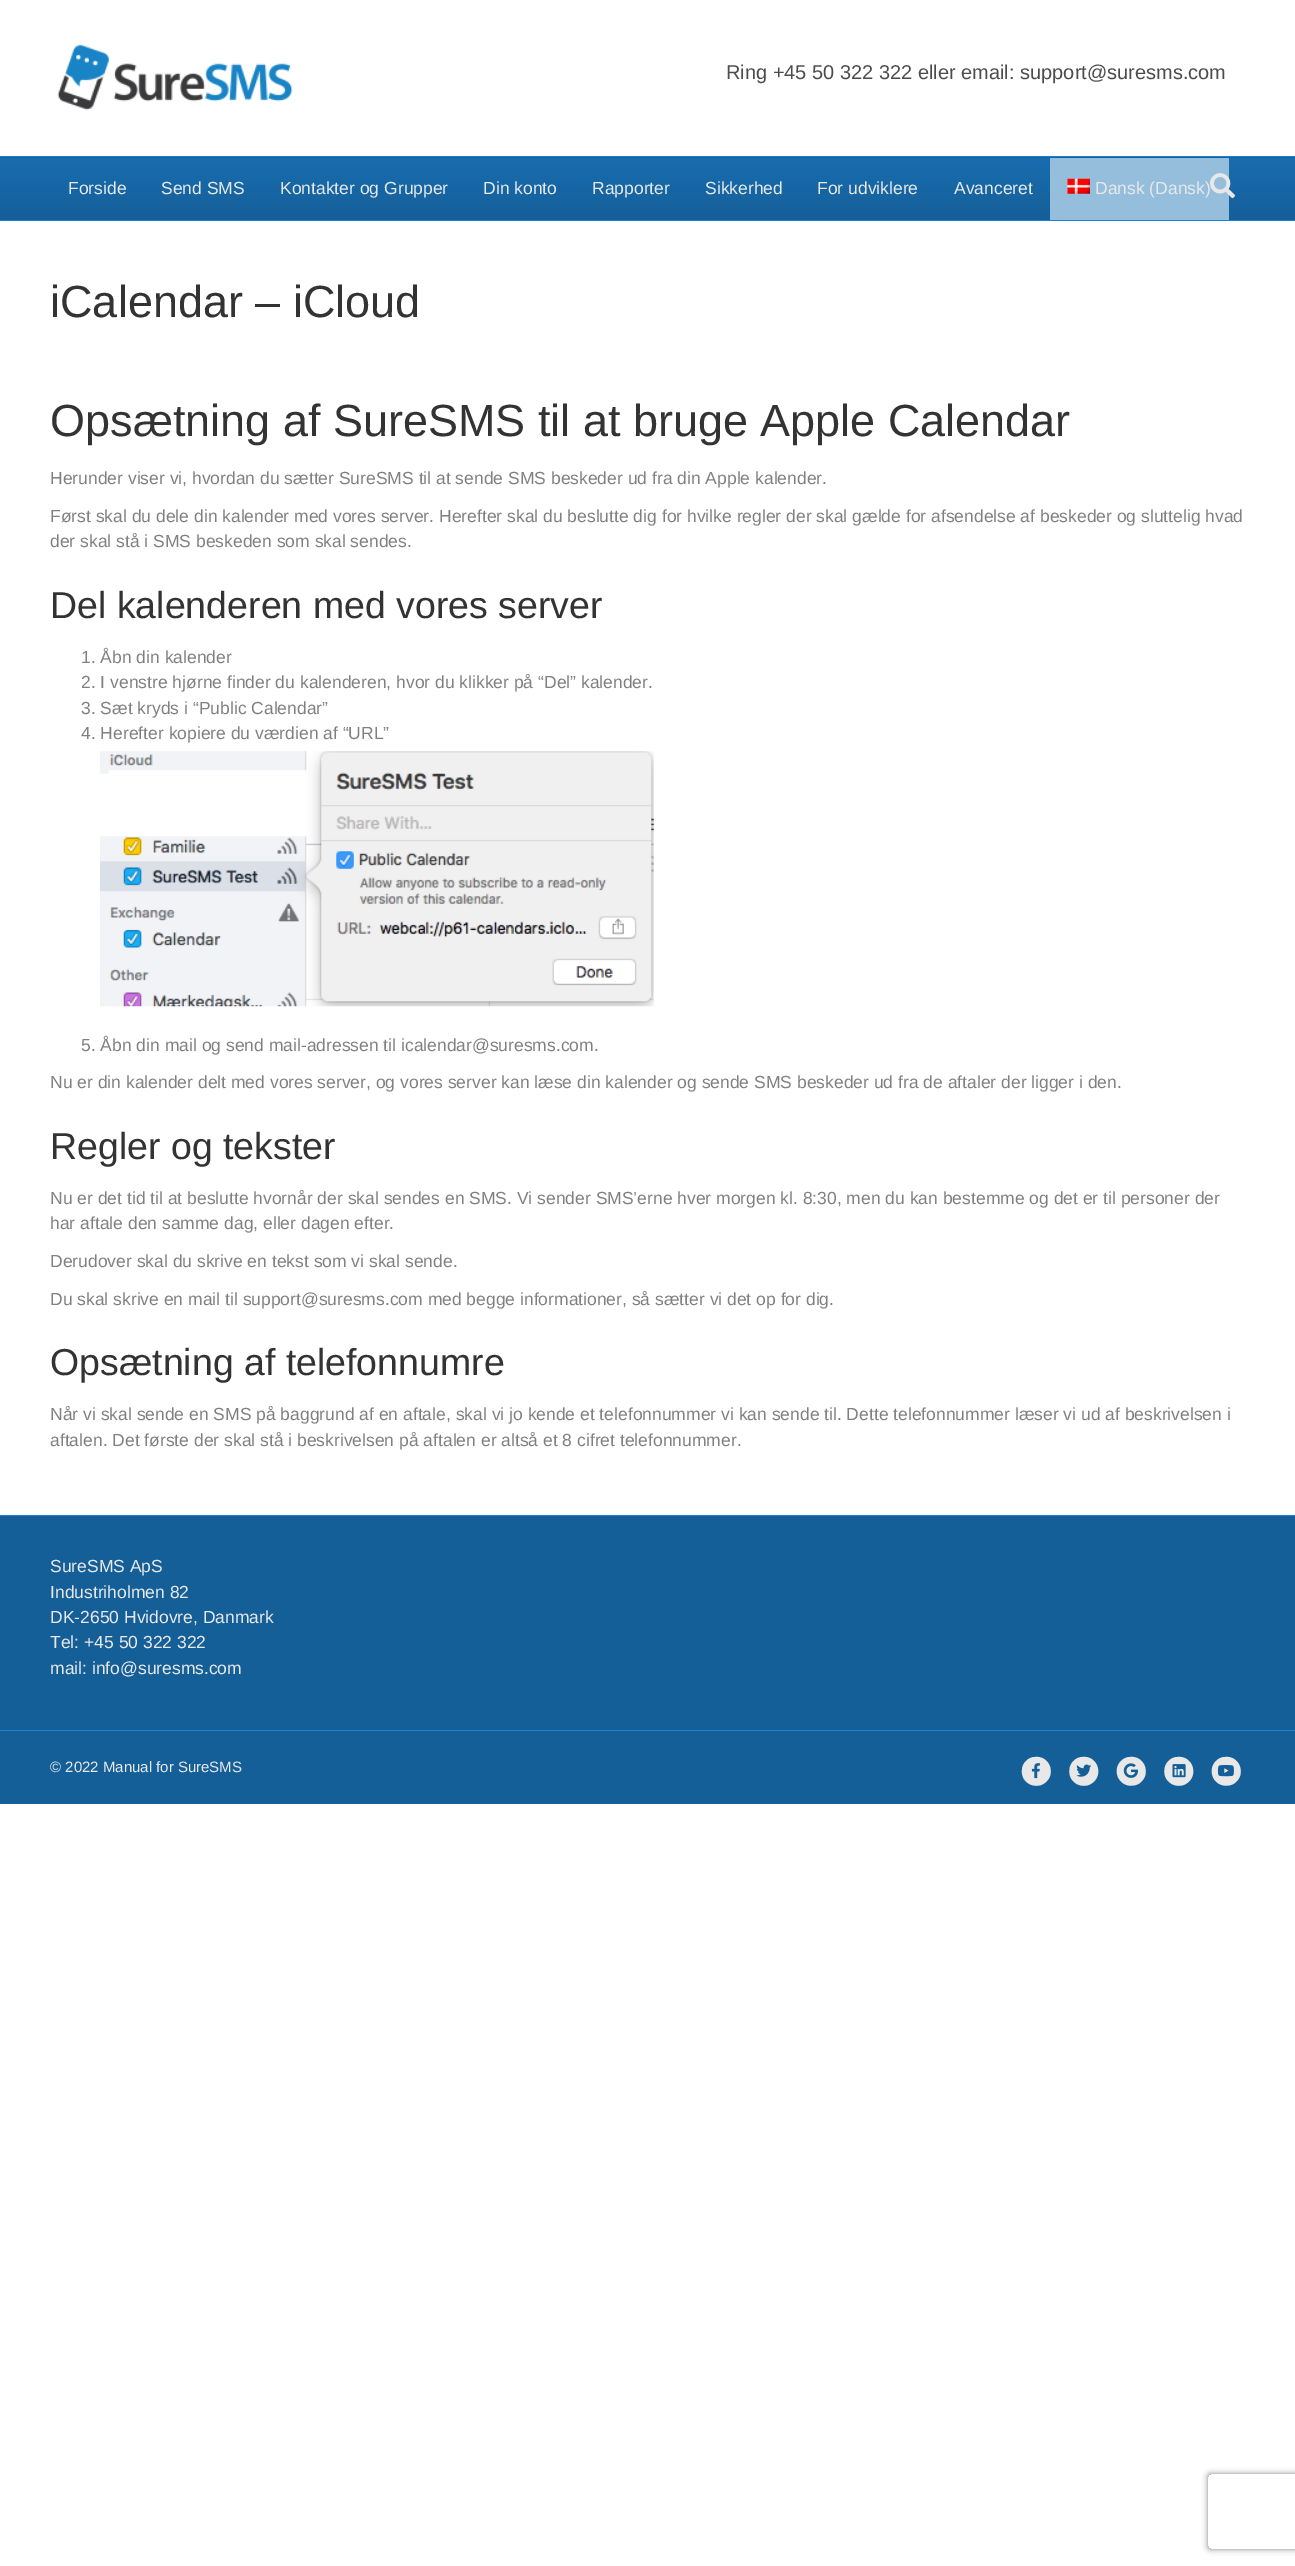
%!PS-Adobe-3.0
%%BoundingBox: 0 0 1295 2566
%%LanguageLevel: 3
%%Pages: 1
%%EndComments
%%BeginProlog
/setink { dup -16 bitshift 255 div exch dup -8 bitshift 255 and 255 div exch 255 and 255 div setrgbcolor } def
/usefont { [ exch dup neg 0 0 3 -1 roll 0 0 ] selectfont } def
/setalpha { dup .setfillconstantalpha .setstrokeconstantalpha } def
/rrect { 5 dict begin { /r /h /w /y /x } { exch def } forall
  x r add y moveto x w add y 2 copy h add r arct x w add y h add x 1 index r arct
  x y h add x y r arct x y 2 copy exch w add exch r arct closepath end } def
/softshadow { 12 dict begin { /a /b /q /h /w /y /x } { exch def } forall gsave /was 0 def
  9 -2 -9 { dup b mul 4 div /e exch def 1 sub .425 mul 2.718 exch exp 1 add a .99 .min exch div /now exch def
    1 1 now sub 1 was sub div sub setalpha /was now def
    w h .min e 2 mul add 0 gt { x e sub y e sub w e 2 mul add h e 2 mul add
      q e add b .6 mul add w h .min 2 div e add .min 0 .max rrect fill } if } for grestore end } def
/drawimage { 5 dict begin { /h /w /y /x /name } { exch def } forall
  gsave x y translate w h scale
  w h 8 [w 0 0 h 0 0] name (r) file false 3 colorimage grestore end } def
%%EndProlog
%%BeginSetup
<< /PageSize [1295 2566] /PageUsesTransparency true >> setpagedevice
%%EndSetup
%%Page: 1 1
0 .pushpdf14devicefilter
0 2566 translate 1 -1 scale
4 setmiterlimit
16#FFFFFF setink
0 0 1295 2566 rectfill
(img1.raw) 57 44 236 67 drawimage
/LiberationSans-Regular 20 usefont
16#4C4C4C setink
726 79 moveto (Ring +45 50 322 322 eller email: support@suresms.com) show
gsave 0 157 moveto 1295 157 lineto 1295 158 lineto 0 158 lineto closepath clip newpath
<< /ShadingType 2 /ColorSpace /DeviceRGB /Coords [648 95 648 158] /Extend [true true] /Function << /FunctionType 2 /Domain [0 1] /C0 [0.094 0.427 0.686] /C1 [0.082 0.373 0.6] /N 1 >> >> shfill grestore
gsave 0 158 moveto 1295 158 lineto 1295 220 lineto 0 220 lineto closepath clip newpath
<< /ShadingType 2 /ColorSpace /DeviceRGB /Coords [648 157 648 220] /Extend [true true] /Function << /FunctionType 2 /Domain [0 1] /C0 [0.094 0.427 0.686] /C1 [0.082 0.373 0.6] /N 1 >> >> shfill grestore
16#1D83D3 setink
0 156 1295 1 rectfill
0 220 1295 1 rectfill
/LiberationSans-Regular 17.5 usefont
16#E8E8E8 setink
[
    [(Forside) 68 194]
    [(Send SMS) 161 194]
    [(Kontakter og Grupper) 280 194]
    [(Din konto) 483 194]
    [(Rapporter) 592 194]
    [(Sikkerhed) 705 194]
    [(For udviklere) 817 194]
    [(Avanceret) 954 194]
] { aload pop moveto show } forall
16#95BEDD setink
1050 158 179 62 rectfill
(img2.raw) 1067 178 23 16 drawimage
16#E8E8E8 setink
1095 194 moveto (Dansk \(Dansk\)) show
(img3.raw) 1210 173 25 26 drawimage
/LiberationSans-Regular 45 usefont
16#333333 setink
50 317 moveto (iCalendar – iCloud) show
50 436 moveto (Opsætning af SureSMS til at bruge Apple Calendar) show
/LiberationSans-Regular 17.5 usefont
16#808080 setink
[
    [(Herunder viser vi, hvordan du sætter SureSMS til at sende SMS beskeder ud fra din Apple kalender.) 50 484]
    [(Først skal du dele din kalender med vores server. Herefter skal du beslutte dig for hvilke regler der skal gælde for afsendelse af beskeder og sluttelig hvad) 50 522]
    [(der skal stå i SMS beskeden som skal sendes.) 50 547]
] { aload pop moveto show } forall
/LiberationSans-Regular 37.5 usefont
16#333333 setink
50 618 moveto (Del kalenderen med vores server) show
/LiberationSans-Regular 17.5 usefont
16#808080 setink
[
    [(1. Åbn din kalender) 81 663]
    [(2. I venstre hjørne finder du kalenderen, hvor du klikker på “Del” kalender.) 81 688]
    [(3. Sæt kryds i “Public Calendar”) 81 714]
    [(4. Herefter kopiere du værdien af “URL”) 81 739]
] { aload pop moveto show } forall
(img4.raw) 100 751 554 256 drawimage
81 1051 moveto (5. Åbn din mail og send mail-adressen til icalendar@suresms.com.) show
50 1088 moveto (Nu er din kalender delt med vores server, og vores server kan læse din kalender og sende SMS beskeder ud fra de aftaler der ligger i den.) show
/LiberationSans-Regular 37.5 usefont
16#333333 setink
50 1159 moveto (Regler og tekster) show
/LiberationSans-Regular 17.5 usefont
16#808080 setink
[
    [(Nu er det tid til at beslutte hvornår der skal sendes en SMS. Vi sender SMS’erne hver morgen kl. 8:30, men du kan bestemme og det er til personer der) 50 1204]
    [(har aftale den samme dag, eller dagen efter.) 50 1229]
    [(Derudover skal du skrive en tekst som vi skal sende.) 50 1267]
    [(Du skal skrive en mail til support@suresms.com med begge informationer, så sætter vi det op for dig.) 50 1305]
] { aload pop moveto show } forall
/LiberationSans-Regular 37.5 usefont
16#333333 setink
50 1375 moveto (Opsætning af telefonnumre) show
/LiberationSans-Regular 17.5 usefont
16#808080 setink
50 1420 moveto (Når vi skal sende en SMS på baggrund af en aftale, skal vi jo kende et telefonnummer vi kan sende til. Dette telefonnummer læser vi ud af beskrivelsen i) show
50 1446 moveto (aftalen. Det første der skal stå i beskrivelsen på aftalen er altså et 8 cifret telefonnummer.) show
16#155F99 setink
0 1516 1295 214 rectfill
16#1D83D3 setink
0 1515 1295 1 rectfill
16#E8E8E8 setink
[
    [(SureSMS ApS) 50 1572]
    [(Industriholmen 82) 50 1598]
    [(DK-2650 Hvidovre, Danmark) 50 1623]
    [(Tel: +45 50 322 322) 50 1648]
    [(mail: info@suresms.com) 50 1674]
] { aload pop moveto show } forall
16#155F99 setink
0 1731 1295 73 rectfill
16#1D83D3 setink
0 1730 1295 1 rectfill
/LiberationSans-Regular 15 usefont
16#E8E8E8 setink
50 1772 moveto (© 2022 Manual for SureSMS) show
1026 1761 moveto 1028.5 1758.5 1031.5 1757 1035 1757 curveto 1048.5 1755.5 1056 1772 1046.5 1781.5 curveto 1037 1791 1020.5 1783.5 1022 1770 curveto 1022 1766.5 1023.5 1763.5 1026 1761 curveto closepath fill
(img5.raw) 1031 1763 9 16 drawimage
1073.5 1761 moveto 1076 1758.5 1079 1757 1082.5 1757 curveto 1096 1755.5 1103.5 1772 1094 1781.5 curveto 1084.5 1791 1068 1783.5 1069.5 1770 curveto 1069.5 1766.5 1071 1763.5 1073.5 1761 curveto closepath fill
(img6.raw) 1076 1764 16 13 drawimage
1121 1761 moveto 1123.5 1758.5 1126.5 1757 1130 1757 curveto 1143.5 1755.5 1151 1772 1141.5 1781.5 curveto 1139 1784 1136 1785.5 1132.5 1785.5 curveto 1119 1787 1111.5 1770.5 1121 1761 curveto closepath fill
(img7.raw) 1123 1763 15 15 drawimage
1168.5 1761 moveto 1171 1758.5 1174 1757 1177.5 1757 curveto 1191 1755.5 1198.5 1772 1189 1781.5 curveto 1179.5 1791 1163 1783.5 1164.5 1770 curveto 1164.5 1766.5 1166 1763.5 1168.5 1761 curveto closepath fill
(img8.raw) 1172 1764 14 14 drawimage
1216 1761 moveto 1218.5 1758.5 1221.5 1757 1225 1757 curveto 1238.5 1755.5 1246 1772 1236.5 1781.5 curveto 1234 1784 1231 1785.5 1227.5 1785.5 curveto 1214 1787 1206.5 1770.5 1216 1761 curveto closepath fill
(img9.raw) 1217 1765 17 12 drawimage
gsave
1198 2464 moveto 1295 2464 lineto 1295 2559 lineto 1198 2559 lineto closepath 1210.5 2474 moveto 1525.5 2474 lineto 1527 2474 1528 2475 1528 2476.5 curveto 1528 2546.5 lineto 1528 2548 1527 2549 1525.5 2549 curveto 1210.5 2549 lineto 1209 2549 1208 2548 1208 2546.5 curveto 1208 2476.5 lineto 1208 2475 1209 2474 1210.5 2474 curveto closepath eoclip newpath
16#808080 setink
1208 2474 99 75 2.5 3 1 softshadow
grestore
.poppdf14devicefilter showpage
%%EOF
